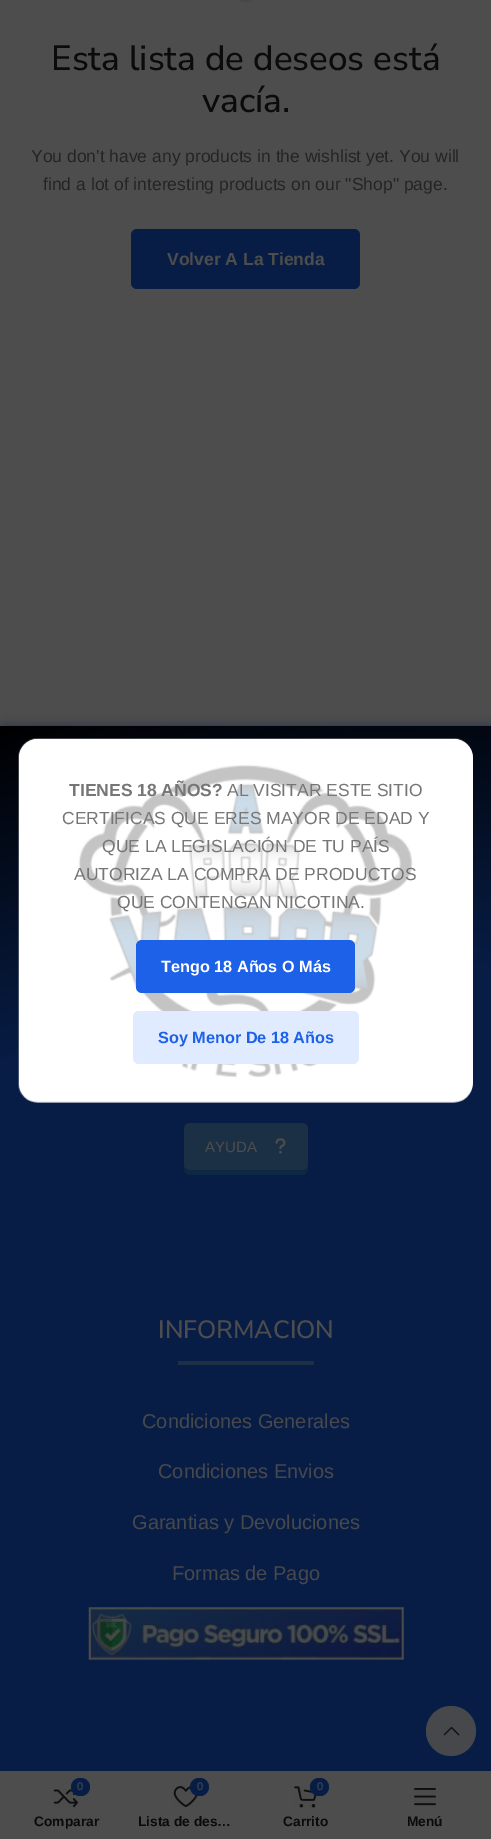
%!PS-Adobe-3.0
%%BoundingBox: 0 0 491 1839
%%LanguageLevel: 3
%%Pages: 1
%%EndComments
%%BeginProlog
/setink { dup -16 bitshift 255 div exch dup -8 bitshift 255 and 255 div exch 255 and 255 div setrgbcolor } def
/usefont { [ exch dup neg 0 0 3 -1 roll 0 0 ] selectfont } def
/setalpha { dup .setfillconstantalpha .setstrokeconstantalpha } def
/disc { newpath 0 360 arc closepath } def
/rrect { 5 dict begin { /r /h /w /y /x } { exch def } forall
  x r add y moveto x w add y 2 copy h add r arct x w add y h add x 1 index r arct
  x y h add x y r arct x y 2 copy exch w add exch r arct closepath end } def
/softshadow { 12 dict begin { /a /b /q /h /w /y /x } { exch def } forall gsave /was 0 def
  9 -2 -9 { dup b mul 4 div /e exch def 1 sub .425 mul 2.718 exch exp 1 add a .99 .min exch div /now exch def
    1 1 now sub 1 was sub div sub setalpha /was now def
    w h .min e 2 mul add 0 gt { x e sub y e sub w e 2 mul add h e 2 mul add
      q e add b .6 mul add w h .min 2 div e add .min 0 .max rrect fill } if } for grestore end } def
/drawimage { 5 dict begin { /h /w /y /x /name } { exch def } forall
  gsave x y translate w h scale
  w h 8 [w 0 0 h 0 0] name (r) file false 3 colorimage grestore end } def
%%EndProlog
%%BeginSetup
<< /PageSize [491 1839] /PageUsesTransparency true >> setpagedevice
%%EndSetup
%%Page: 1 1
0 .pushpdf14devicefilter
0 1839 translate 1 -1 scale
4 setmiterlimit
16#4D4D4D setink
0 0 491 1839 rectfill
(img1.raw) 239 0 13 3 drawimage
/NunitoSans-Medium 35 usefont
16#0B0B0B setink
51 70 moveto (Esta lista de deseos está) show
202 112 moveto (vacía.) show
/LiberationSans-Regular 17.5 usefont
16#242424 setink
31 162 moveto (You don't have any products in the wishlist yet. You will) show
43 190 moveto (find a lot of interesting products on our "Shop" page.) show
16#081D45 setink
131 229 229 60 6 rrect fill
/LiberationSans-Bold 17.5 usefont
16#4D4D4D setink
167 265 moveto (Volver A La Tienda) show
16#081D45 setink
3 726 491 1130 0 5.5 0.55 softshadow
gsave 0 726 moveto 491 726 lineto 491 1771 lineto 0 1771 lineto closepath clip newpath 491 2241 translate 1593 1593 scale
<< /ShadingType 3 /ColorSpace /DeviceRGB /Coords [0 0 0 0 0 1] /Extend [true true] /Function << /FunctionType 3 /Domain [0 1] /Functions [<< /FunctionType 2 /Domain [0 1] /C0 [0.035 0.031 0.051] /C1 [0.031 0.114 0.271] /N 1 >> << /FunctionType 2 /Domain [0 1] /C0 [0.031 0.114 0.271] /C1 [0.031 0.114 0.271] /N 1 >> << /FunctionType 2 /Domain [0 1] /C0 [0.031 0.114 0.271] /C1 [0 0 0] /N 1 >>] /Bounds [0.19 0.8] /Encode [0 1 0 1 0 1] >> >> shfill grestore
16#0D2842 setink
184 1166 moveto 184 1169 lineto 184 1172 187 1175 190 1175 curveto 302 1175 lineto 305 1175 308 1172 308 1169 curveto 308 1134 lineto 308 1132 lineto 308 1164 lineto 308 1167 305 1170 301 1170 curveto 190 1170 lineto 187 1170 185 1168 184 1166 curveto closepath fill
16#1B3044 setink
184 1123 124 47 6 rrect fill
/LiberationSans-Regular 15 usefont
16#4D4D4D setink
205 1152 moveto (AYUDA) show
(img2.raw) 275 1138 11 16 drawimage
/NunitoSans-Medium 25 usefont
158 1338 moveto (INFORMACION) show
16#1B3044 setink
178 1361 136 4 rectfill
/LiberationSans-Regular 20 usefont
16#46484C setink
[
    [(Condiciones Generales) 142 1428]
    [(Condiciones Envios) 158 1478]
    [(Garantias y Devoluciones) 132 1529]
    [(Formas de Pago) 172 1580]
] { aload pop moveto show } forall
(img3.raw) 88 1607 316 53 drawimage
16#FFFFFF setink
19 739 454 362 19 rrect fill
(img4.raw) 18 738 455 365 drawimage
/LiberationSans-Bold 17.5 usefont
16#767676 setink
69 796 moveto (TIENES 18 AÑOS?) show
/LiberationSans-Regular 17.5 usefont
[
    [(AL VISITAR ESTE SITIO) 227 796]
    [(CERTIFICAS QUE ERES MAYOR DE EDAD Y) 62 824]
    [(QUE LA LEGISLACIÓN DE TU PAÍS) 102 852]
    [(AUTORIZA LA COMPRA DE PRODUCTOS) 74 880]
    [(QUE CONTENGAN NICOTINA.) 117 908]
] { aload pop moveto show } forall
16#1C61E7 setink
136 940 219 53 6 rrect fill
/LiberationSans-Bold 16.25 usefont
16#FFFFFF setink
161 972 moveto (Tengo 18 Años O Más) show
16#E1EBFF setink
133 1011 226 53 6 rrect fill
16#1C61E7 setink
158 1043 moveto (Soy Menor De 18 Años) show
0.9 setalpha
16#4D4D4D setink
451 1731 25 disc fill
1 setalpha
(img5.raw) 443 1726 17 10 drawimage
0 1771 491 68 rectfill
(img6.raw) 53 1789 25 19 drawimage
16#081D45 setink
71 1778 19 18 9 rrect fill
/LiberationSans-Regular 11 usefont
16#4D4D4D setink
77 1790 moveto (0) show
/LiberationSans-Bold 13.75 usefont
16#0B0B0B setink
34 1826 moveto (Comparar) show
(img7.raw) 173 1786 25 21 drawimage
16#081D45 setink
190 1778 19 18 9 rrect fill
/LiberationSans-Regular 11 usefont
16#4D4D4D setink
197 1790 moveto (0) show
/LiberationSans-Bold 13.75 usefont
16#0B0B0B setink
138 1826 moveto (Lista de des…) show
(img8.raw) 294 1786 23 22 drawimage
16#081D45 setink
310 1778 19 18 9 rrect fill
/LiberationSans-Regular 11 usefont
16#4D4D4D setink
317 1790 moveto (0) show
/LiberationSans-Bold 13.75 usefont
16#0B0B0B setink
283 1826 moveto (Carrito) show
(img9.raw) 414 1788 22 18 drawimage
407 1826 moveto (Menú) show
.poppdf14devicefilter showpage
%%EOF
